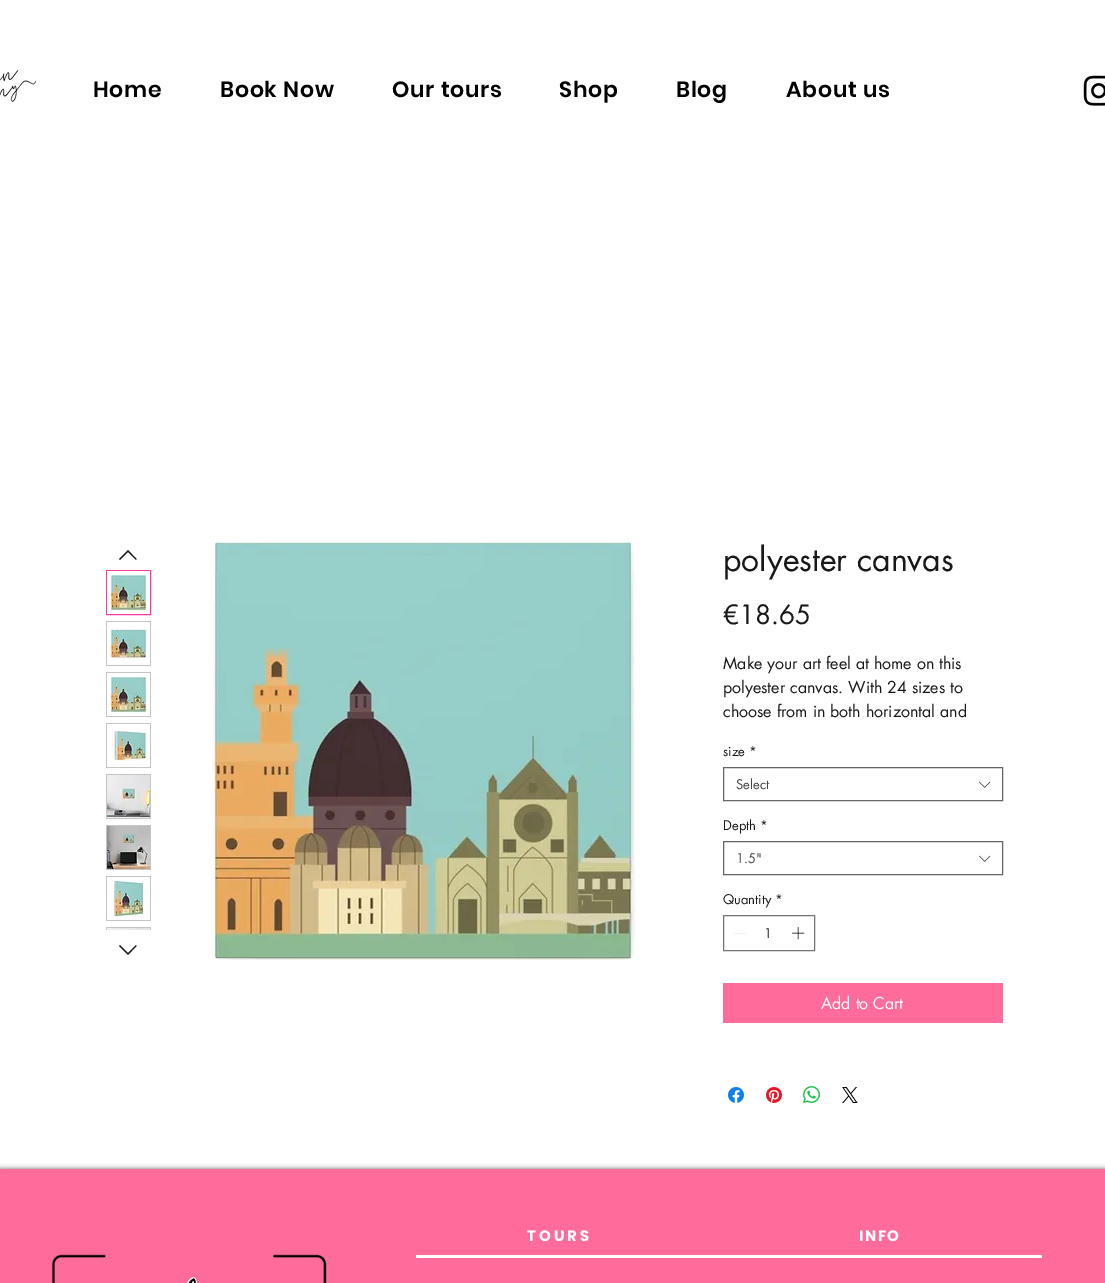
%!PS-Adobe-3.0
%%BoundingBox: 0 0 1105 1283
%%LanguageLevel: 3
%%Pages: 1
%%EndComments
%%BeginProlog
/setink { dup -16 bitshift 255 div exch dup -8 bitshift 255 and 255 div exch 255 and 255 div setrgbcolor } def
/usefont { [ exch dup neg 0 0 3 -1 roll 0 0 ] selectfont } def
/setalpha { dup .setfillconstantalpha .setstrokeconstantalpha } def
/rrect { 5 dict begin { /r /h /w /y /x } { exch def } forall
  x r add y moveto x w add y 2 copy h add r arct x w add y h add x 1 index r arct
  x y h add x y r arct x y 2 copy exch w add exch r arct closepath end } def
/softshadow { 12 dict begin { /a /b /q /h /w /y /x } { exch def } forall gsave /was 0 def
  9 -2 -9 { dup b mul 4 div /e exch def 1 sub .425 mul 2.718 exch exp 1 add a .99 .min exch div /now exch def
    1 1 now sub 1 was sub div sub setalpha /was now def
    w h .min e 2 mul add 0 gt { x e sub y e sub w e 2 mul add h e 2 mul add
      q e add b .6 mul add w h .min 2 div e add .min 0 .max rrect fill } if } for grestore end } def
/drawimage { 5 dict begin { /h /w /y /x /name } { exch def } forall
  gsave x y translate w h scale
  w h 8 [w 0 0 h 0 0] name (r) file false 3 colorimage grestore end } def
%%EndProlog
%%BeginSetup
<< /PageSize [1105 1283] /PageUsesTransparency true >> setpagedevice
%%EndSetup
%%Page: 1 1
0 .pushpdf14devicefilter
0 1283 translate 1 -1 scale
4 setmiterlimit
16#FFFFFF setink
0 0 1105 1283 rectfill
(img1.raw) 0 70 37 32 drawimage
/Poppins-SemiBold 22 usefont
16#000000 setink
93 97 moveto 0.75 0 (Home) ashow
220 97 moveto 0.75 0 (Book Now) ashow
392 97 moveto 0.75 0 (Our tours) ashow
559 97 moveto 0.75 0 (Shop) ashow
676 97 moveto 0.75 0 (Blog) ashow
786 97 moveto 0.75 0 (About us) ashow
(img2.raw) 1083 75 22 31 drawimage
16#181818 setink
128 550 moveto 136.5 559 lineto 136 560 lineto 128 552 lineto 120 560 lineto 119 559 lineto closepath eofill
16#F83BA4 setink
106.5 570.5 44 44 rectstroke
(img3.raw) 107 571 43 43 drawimage
16#C5C5C5 setink
106 621 45 45 rectfill
(img4.raw) 107 622 43 43 drawimage
106 672 45 45 rectfill
(img5.raw) 107 673 43 43 drawimage
106 723 45 45 rectfill
(img6.raw) 107 724 43 43 drawimage
106 774 45 45 rectfill
(img7.raw) 107 775 43 43 drawimage
106 825 45 45 rectfill
(img8.raw) 107 826 43 43 drawimage
106 876 45 45 rectfill
(img9.raw) 107 877 43 43 drawimage
106 927 45 3 rectfill
(img10.raw) 107 928 43 2 drawimage
16#181818 setink
136 945 moveto 136.5 946 lineto 128 955 lineto 119 946 lineto 120 945 lineto 128 953 lineto closepath eofill
(img11.raw) 211 540 426 420 drawimage
/futura-Regular 32 usefont
723 571 moveto (polyester canvas) show
/futura-Regular 26 usefont
723 624 moveto (€18.65) show
/futura-Regular 16 usefont
[
    [(Make your art feel at home on this) 723 669]
    [(polyester canvas. With 24 sizes to) 723 693]
    [(choose from in both horizontal and) 723 717]
] { aload pop moveto show } forall
/futura-Regular 13 usefont
723 756 moveto (size *) show
16#666666 setink
723.5 767.5 279 33 rectstroke
16#444444 setink
736 789 moveto (Select) show
(img12.raw) 979 781 12 7 drawimage
16#181818 setink
723 830 moveto (Depth *) show
16#666666 setink
723.5 841.5 279 33 rectstroke
16#444444 setink
736 863 moveto (1.5") show
(img12.raw) 979 855 12 7 drawimage
16#181818 setink
723 904 moveto (Quantity *) show
16#747474 setink
723.5 915.5 91 35 rectstroke
16#E3E3E3 setink
746 933 moveto 746 933.5 lineto 734 933.5 lineto 734 933 lineto closepath eofill
16#181818 setink
764 938 moveto (1) show
(img13.raw) 792 927 13 13 drawimage
16#FF6C9C setink
723 983 280 40 rectfill
/futura-Regular 16 usefont
16#FFFFFF setink
821 1009 moveto (Add to Cart) show
(img14.raw) 728 1087 16 16 drawimage
(img15.raw) 766 1087 16 16 drawimage
(img16.raw) 803 1086 17 17 drawimage
(img17.raw) 842 1087 16 16 drawimage
16#000000 setink
0 1169 1105 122 0 2.5 0.6 softshadow
16#FF6C9C setink
0 1169 1105 114 rectfill
(img18.raw) 52 1254 275 29 drawimage
/Poppins-Bold 15 usefont
16#FFFFFF setink
527 1241 moveto 3 0 (TOURS) ashow
416 1255 626 3 rectfill
859 1241 moveto 1.5 0 (INFO) ashow
.poppdf14devicefilter showpage
%%EOF
